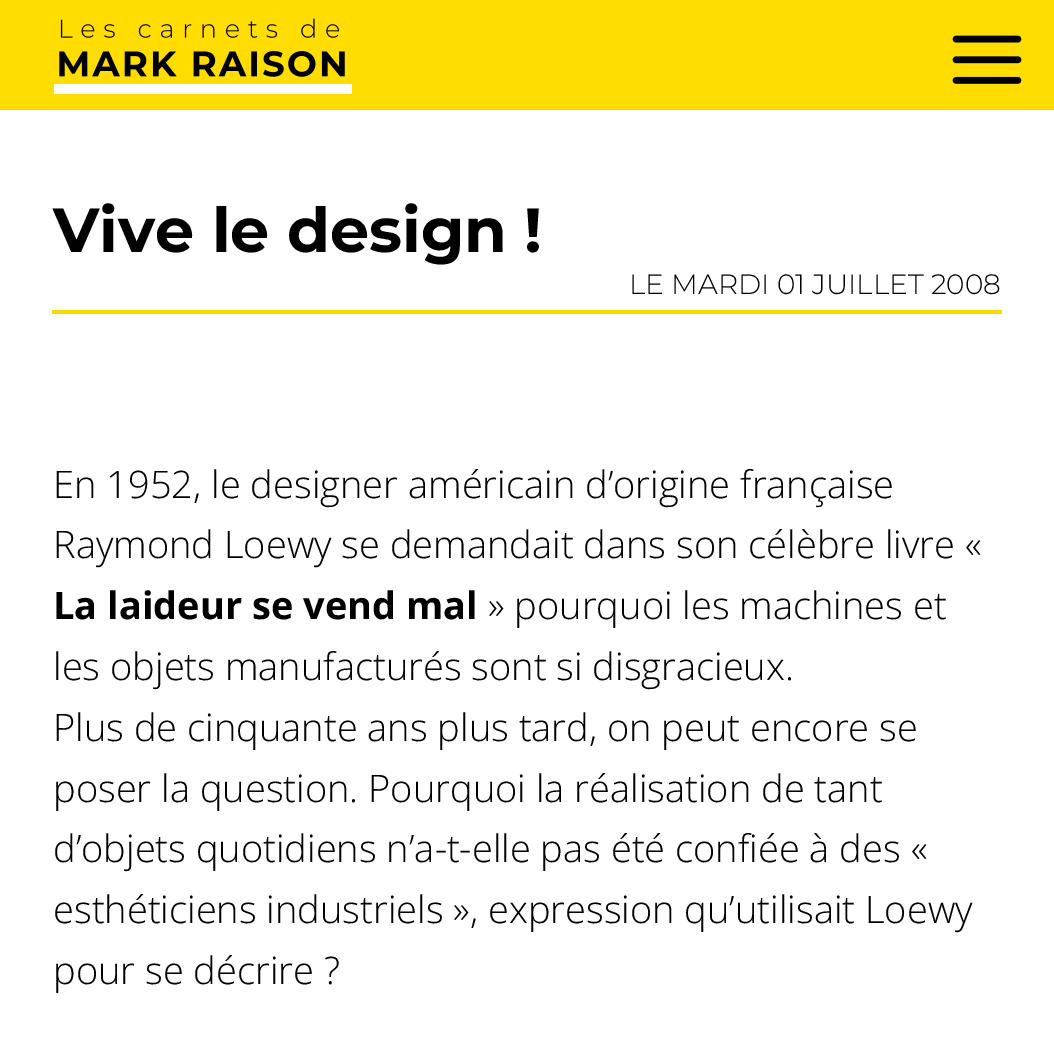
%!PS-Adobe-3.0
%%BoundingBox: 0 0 1054 1054
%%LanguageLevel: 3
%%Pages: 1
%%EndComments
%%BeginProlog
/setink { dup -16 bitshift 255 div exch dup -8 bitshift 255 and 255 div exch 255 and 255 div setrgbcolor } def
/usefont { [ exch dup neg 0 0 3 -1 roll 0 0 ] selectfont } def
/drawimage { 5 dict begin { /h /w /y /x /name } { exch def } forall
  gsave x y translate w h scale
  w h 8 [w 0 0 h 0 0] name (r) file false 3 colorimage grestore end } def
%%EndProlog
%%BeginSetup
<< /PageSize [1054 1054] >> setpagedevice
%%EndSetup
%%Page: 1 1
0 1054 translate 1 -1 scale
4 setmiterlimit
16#FFFFFF setink
0 0 1054 1054 rectfill
16#FFDD00 setink
0 0 1054 110 rectfill
(img1.raw) 54 18 298 76 drawimage
(img2.raw) 952 35 70 49 drawimage
/Montserrat-Thin 62 usefont
16#000000 setink
53 252 moveto (Vive le design !) show
/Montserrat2-Thin 28 usefont
629 294 moveto (LE MARDI 01 JUILLET 2008) show
16#F4DA01 setink
52 310 950 4 rectfill
/OpenSans-Light 38 usefont
16#000000 setink
53 498 moveto (En 1952, le designer américain d’origine française) show
53 558 moveto (Raymond Loewy se demandait dans son célèbre livre «) show
/OpenSans-Bold 38 usefont
53 619 moveto (La laideur se vend mal) show
/OpenSans-Light 38 usefont
[
    [(» pourquoi les machines et) 488 619]
    [(les objets manufacturés sont si disgracieux.) 53 680]
    [(Plus de cinquante ans plus tard, on peut encore se) 53 741]
    [(poser la question. Pourquoi la réalisation de tant) 53 802]
    [(d’objets quotidiens n’a-t-elle pas été confiée à des «) 53 862]
    [(esthéticiens industriels », expression qu’utilisait Loewy) 53 923]
    [(pour se décrire ?) 53 984]
] { aload pop moveto show } forall
showpage
%%EOF
